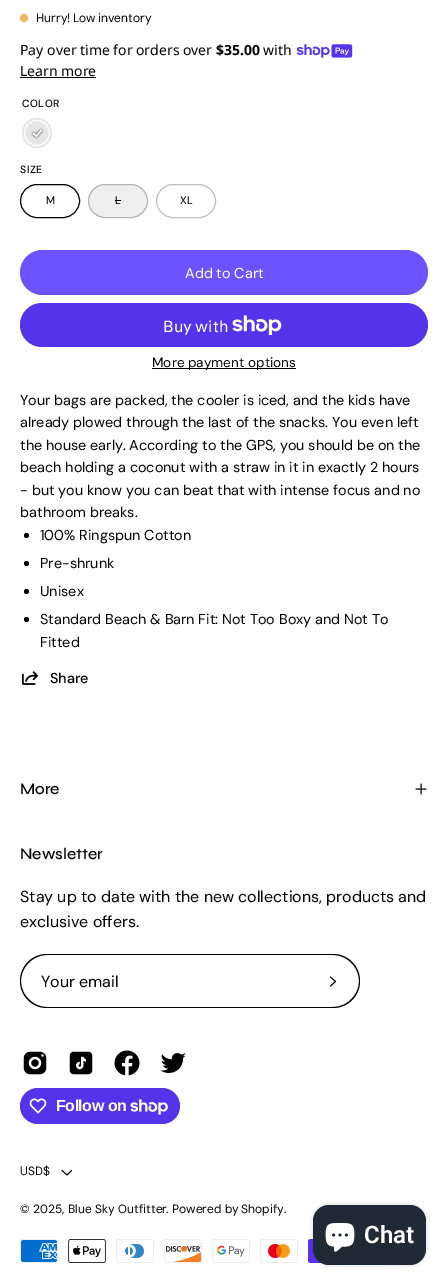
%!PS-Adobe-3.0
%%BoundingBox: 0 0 448 1286
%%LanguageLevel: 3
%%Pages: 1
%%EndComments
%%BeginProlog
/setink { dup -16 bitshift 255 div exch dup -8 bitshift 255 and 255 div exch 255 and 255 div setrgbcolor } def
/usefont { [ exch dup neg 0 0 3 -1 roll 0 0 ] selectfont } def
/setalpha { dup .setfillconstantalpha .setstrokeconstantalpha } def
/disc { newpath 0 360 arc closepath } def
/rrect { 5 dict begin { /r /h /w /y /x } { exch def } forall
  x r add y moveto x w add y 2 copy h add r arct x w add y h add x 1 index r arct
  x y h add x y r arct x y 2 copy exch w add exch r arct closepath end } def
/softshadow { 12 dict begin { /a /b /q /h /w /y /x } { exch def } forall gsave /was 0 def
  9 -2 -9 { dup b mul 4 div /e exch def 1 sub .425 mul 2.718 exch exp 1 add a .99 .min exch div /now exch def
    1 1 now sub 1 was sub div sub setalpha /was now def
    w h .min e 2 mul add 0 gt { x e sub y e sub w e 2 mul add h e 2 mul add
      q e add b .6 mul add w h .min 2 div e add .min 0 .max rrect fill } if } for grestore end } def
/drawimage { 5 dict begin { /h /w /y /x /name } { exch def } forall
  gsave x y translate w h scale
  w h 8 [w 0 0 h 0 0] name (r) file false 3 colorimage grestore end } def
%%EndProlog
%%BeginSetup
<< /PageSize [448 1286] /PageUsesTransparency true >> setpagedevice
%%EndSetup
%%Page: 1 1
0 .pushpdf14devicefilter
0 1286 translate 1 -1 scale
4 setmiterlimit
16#FFFFFF setink
0 0 448 1286 rectfill
16#ECBD5E setink
24 18 4 disc fill
/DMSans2-Regular 12 usefont
16#000000 setink
36 22 moveto -1 0 32 (Hurry! Low inventory) widthshow
/NotoSans-Regular 14 usefont
20 55 moveto (Pay over time for orders over) show
/NotoSans-Bold 14 usefont
216 55 moveto ($35.00) show
/NotoSans-Regular 14 usefont
263 55 moveto (with) show
(img1.raw) 296 44 57 14 drawimage
20 76 moveto (Learn more) show
20 77 76 1 rectfill
/DMSans2-Medium 10.5 usefont
22 107 moveto 0.5 0 (COLOR) ashow
16#E5E5E5 setink
37 133 15 disc fill
(img2.raw) 31 128 13 11 drawimage
16#FFFFFF setink
37 133 12.5 disc stroke
16#000000 setink
20 173 moveto 0.5 0 (SIZE) ashow
20.5 184.5 59 33 16.5 rrect stroke
/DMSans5-Regular 11 usefont
46 204 moveto (M) show
16#EFEFEF setink
88 184 60 34 17 rrect fill
0.25 setalpha
16#000000 setink
88.5 184.5 59 33 16.5 rrect stroke
/DMSans2-Regular 11 usefont
1 setalpha
115 204 moveto (L) show
115 200 6 1 rectfill
16#BFBFBF setink
156.5 184.5 59 33 16.5 rrect stroke
16#000000 setink
180 204 moveto (XL) show
16#6D52FF setink
20 250 408 45 22.5 rrect fill
/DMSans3-Regular 14.4 usefont
16#FFFFFF setink
185 278 moveto (Add to Cart) show
16#5433EB setink
20 303 408 44 22 rrect fill
/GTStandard-Regular 16 usefont
16#FFFFFF setink
163 332 moveto (Buy with) show
(img3.raw) 232 315 50 20 drawimage
16#000000 setink
152 368 144 1 rectfill
/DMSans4-Regular 13.6 usefont
152 367 moveto (More payment options) show
/DMSans3-Regular 14.4 usefont
[
    [(Your bags are packed, the cooler is iced, and the kids have) 20 405]
    [(already plowed through the last of the snacks. You even left) 20 427]
    [(the house early. According to the GPS, you should be on the) 20 450]
    [(beach holding a coconut with a straw in it in exactly 2 hours) 20 472]
    [(- but you know you can beat that with intense focus and no) 20 495]
    [(bathroom breaks.) 20 517]
] { aload pop moveto show } forall
26.5 535.5 2.5 disc fill
40 540 moveto (100% Ringspun Cotton) show
26.5 563.5 2.5 disc fill
40 568 moveto (Pre-shrunk) show
26.5 591.5 2.5 disc fill
40 596 moveto (Unisex) show
26.5 619.5 2.5 disc fill
40 624 moveto (Standard Beach & Barn Fit: Not Too Boxy and Not To) show
40 647 moveto (Fitted) show
(img4.raw) 21 671 17 14 drawimage
/DMSans-Medium 14.4 usefont
50 683 moveto (Share) show
/Syne-Medium 16 usefont
20 794 moveto (More) show
0.9 setlinewidth
1 setlinecap
1 setlinejoin
416 789 moveto 426 789 lineto 421 784 moveto 421 794 lineto stroke
20 859 moveto (Newsletter) show
/DMSans-Regular 16 usefont
20 902 moveto (Stay up to date with the new collections, products and) show
20 927 moveto (exclusive offers.) show
47 954 moveto 306 954 lineto 306 1008 lineto 47 1008 lineto 32 1008 20 996 20 981 curveto 20 966 32 954 47 954 curveto closepath 47 955 moveto 306 955 lineto 306 1007 lineto 47 1007 lineto 33 1007 21 995 21 981 curveto 21 967 33 955 47 955 curveto closepath eofill
41 987 moveto (Your email) show
306 954 moveto 333 954 lineto 348 954 360 966 360 981 curveto 360 996 348 1008 333 1008 curveto 306 1008 lineto closepath 306 955 moveto 333 955 lineto 347 955 359 967 359 981 curveto 359 995 347 1007 333 1007 curveto 306 1007 lineto closepath eofill
330.5 977 moveto 335.5 981.5 lineto 330.5 986 lineto stroke
(img5.raw) 23 1051 24 24 drawimage
(img6.raw) 69 1051 24 24 drawimage
(img7.raw) 114 1050 26 26 drawimage
(img8.raw) 160 1053 26 20 drawimage
16#5433EB setink
20 1088 160 36 18 rrect fill
(img9.raw) 29 1098 18 16 drawimage
/LiberationSans-Bold 16 usefont
16#FFFFFF setink
56 1111 moveto -0.5 0 (Follow on) ashow
(img10.raw) 130 1099 38 16 drawimage
gsave
20 1154 53 36 18 rrect clip newpath
/DMSans2-Regular 12 usefont
16#000000 setink
20 1175 moveto (USD$) show
grestore
16#000000 setink
71.5 1170.5 moveto 67 1175 lineto 62 1170.5 lineto stroke
/DMSans2-Regular 12 usefont
[
    [(© 2025,) 20 1213]
    [(Blue Sky Outfitter) 68 1213]
    [(.) 166 1213]
    [(Powered by) 172 1213]
    [(Shopify.) 241 1213]
] { aload pop moveto show } forall
(img11.raw) 20 1239 38 24 drawimage
(img12.raw) 68 1239 38 24 drawimage
(img13.raw) 116 1239 38 24 drawimage
(img14.raw) 164 1239 38 24 drawimage
(img15.raw) 212 1239 38 24 drawimage
(img16.raw) 260 1239 38 24 drawimage
(img17.raw) 308 1239 14 24 drawimage
313 1205 113 60 16 2.5 0.15 softshadow
16#202A36 setink
313 1205 113 60 16 rrect fill
(img18.raw) 325 1223 30 29 drawimage
/Roboto-SemiBold 24 usefont
16#FFFFFF setink
364 1243 moveto (Chat) show
.poppdf14devicefilter showpage
%%EOF
